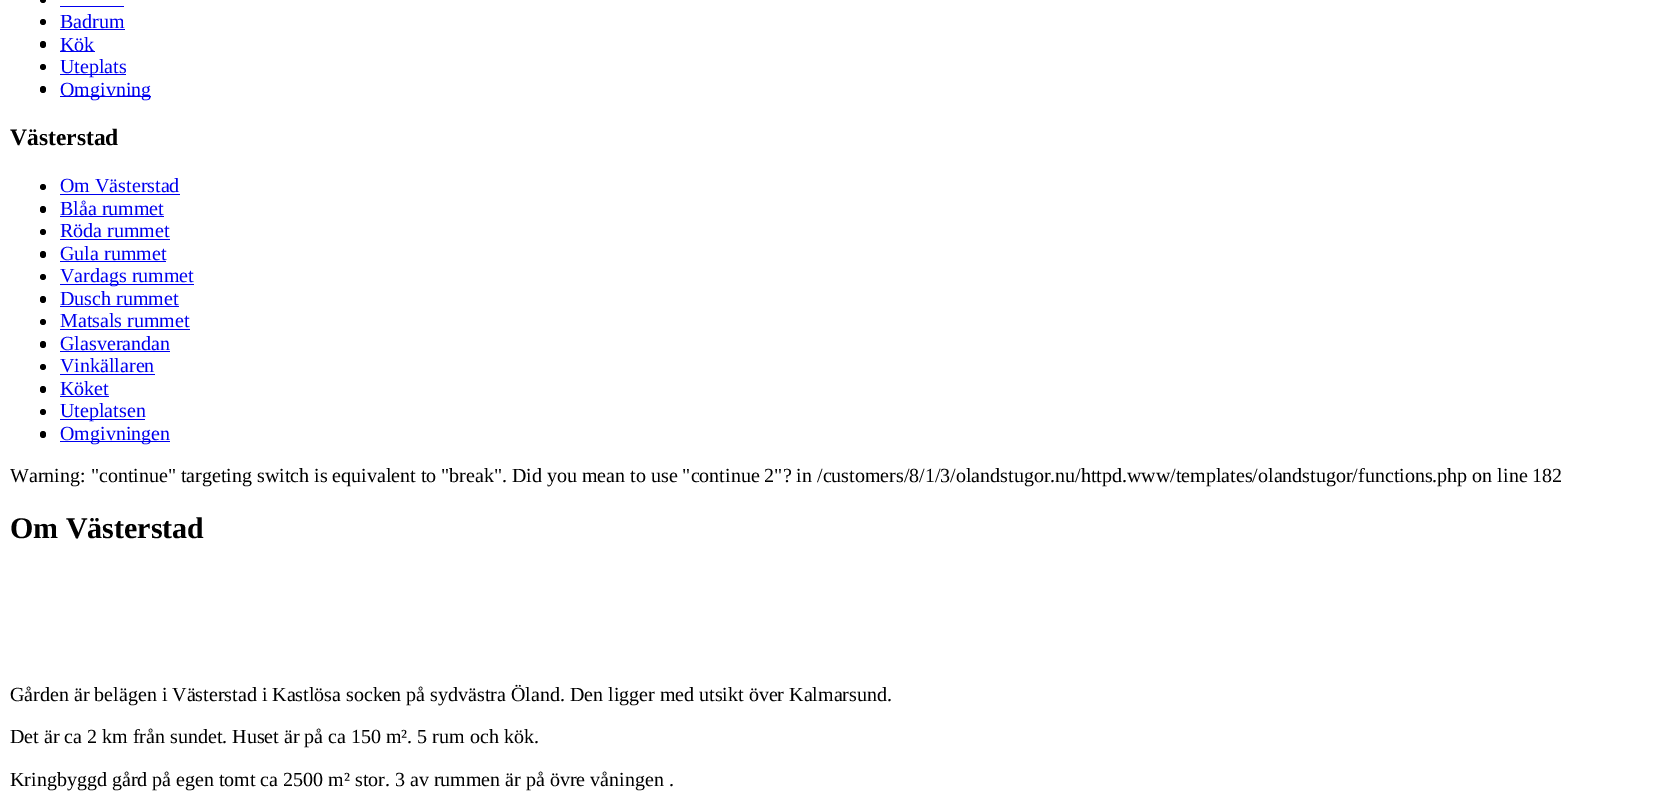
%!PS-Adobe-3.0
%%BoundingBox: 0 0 1673 803
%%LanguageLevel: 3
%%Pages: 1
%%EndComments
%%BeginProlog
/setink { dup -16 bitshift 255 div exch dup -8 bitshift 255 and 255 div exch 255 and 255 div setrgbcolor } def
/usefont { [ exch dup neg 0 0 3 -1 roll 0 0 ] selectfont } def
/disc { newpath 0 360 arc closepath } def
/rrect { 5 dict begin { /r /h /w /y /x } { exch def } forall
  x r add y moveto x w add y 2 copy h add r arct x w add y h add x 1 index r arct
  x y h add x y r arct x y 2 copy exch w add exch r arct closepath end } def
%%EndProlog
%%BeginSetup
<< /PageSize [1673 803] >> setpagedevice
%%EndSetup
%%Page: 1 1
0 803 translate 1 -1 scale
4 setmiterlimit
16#FFFFFF setink
0 0 1673 803 rectfill
16#000000 setink
43 0 3 disc fill
16#0000EE setink
60 6 64 1 rectfill
16#000000 setink
43 22 3 disc fill
/LiberationSerif-Regular 20 usefont
16#0000EE setink
60 28 moveto (Badrum) show
60 29 65 1 rectfill
16#000000 setink
40 41 6 7 3 rrect fill
16#0000EE setink
60 51 35 1 rectfill
60 51 moveto (Kök) show
16#000000 setink
43 67 3 disc fill
16#0000EE setink
60 74 66 1 rectfill
60 73 moveto (Uteplats) show
16#000000 setink
40 86 6 7 3 rrect fill
16#0000EE setink
60 96 91 1 rectfill
60 96 moveto (Omgivning) show
/LiberationSerif-Bold 23.5 usefont
16#000000 setink
10 145 moveto (Västerstad) show
43 187 3 disc fill
/LiberationSerif-Regular 20 usefont
16#0000EE setink
60 192 moveto (Om Västerstad) show
60 194 120 1 rectfill
16#000000 setink
40 206 6 7 3 rrect fill
16#0000EE setink
60 215 moveto (Blåa rummet) show
60 216 104 1 rectfill
16#000000 setink
43 232 3 disc fill
16#0000EE setink
60 237 moveto (Röda rummet) show
60 239 110 1 rectfill
16#000000 setink
40 251 6 7 3 rrect fill
16#0000EE setink
60 260 moveto (Gula rummet) show
60 261 106 1 rectfill
16#000000 setink
43 277 3 disc fill
16#0000EE setink
60 284 134 1 rectfill
60 282 moveto (Vardags rummet) show
16#000000 setink
40 296 6 7 3 rrect fill
16#0000EE setink
60 305 moveto (Dusch rummet) show
60 306 119 1 rectfill
16#000000 setink
43 322 3 disc fill
16#0000EE setink
60 327 moveto (Matsals rummet) show
60 329 130 1 rectfill
16#000000 setink
40 341 6 7 3 rrect fill
16#0000EE setink
60 350 moveto (Glasverandan) show
60 351 110 1 rectfill
16#000000 setink
43 367 3 disc fill
16#0000EE setink
60 372 moveto (Vinkällaren) show
60 374 95 1 rectfill
16#000000 setink
40 386 6 7 3 rrect fill
16#0000EE setink
60 395 moveto (Köket) show
60 396 49 1 rectfill
16#000000 setink
43 412 3 disc fill
16#0000EE setink
60 419 85 1 rectfill
60 417 moveto (Uteplatsen) show
16#000000 setink
40 431 6 7 3 rrect fill
16#0000EE setink
60 441 110 1 rectfill
60 440 moveto (Omgivningen) show
16#000000 setink
10 482 moveto (Warning: "continue" targeting switch is equivalent to "break". Did you mean to use "continue 2"? in /customers/8/1/3/olandstugor.nu/httpd.www/templates/olandstugor/functions.php on line 182) show
/LiberationSerif-Bold 30 usefont
10 538 moveto (Om Västerstad) show
/LiberationSerif-Regular 20 usefont
[
    [(Gården är belägen i Västerstad i Kastlösa socken på sydvästra Öland. Den ligger med utsikt över Kalmarsund.) 10 701]
    [(Det är ca 2 km från sundet. Huset är på ca 150 m². 5 rum och kök.) 10 743]
    [(Kringbyggd gård på egen tomt ca 2500 m² stor. 3 av rummen är på övre våningen .) 10 786]
] { aload pop moveto show } forall
showpage
%%EOF
